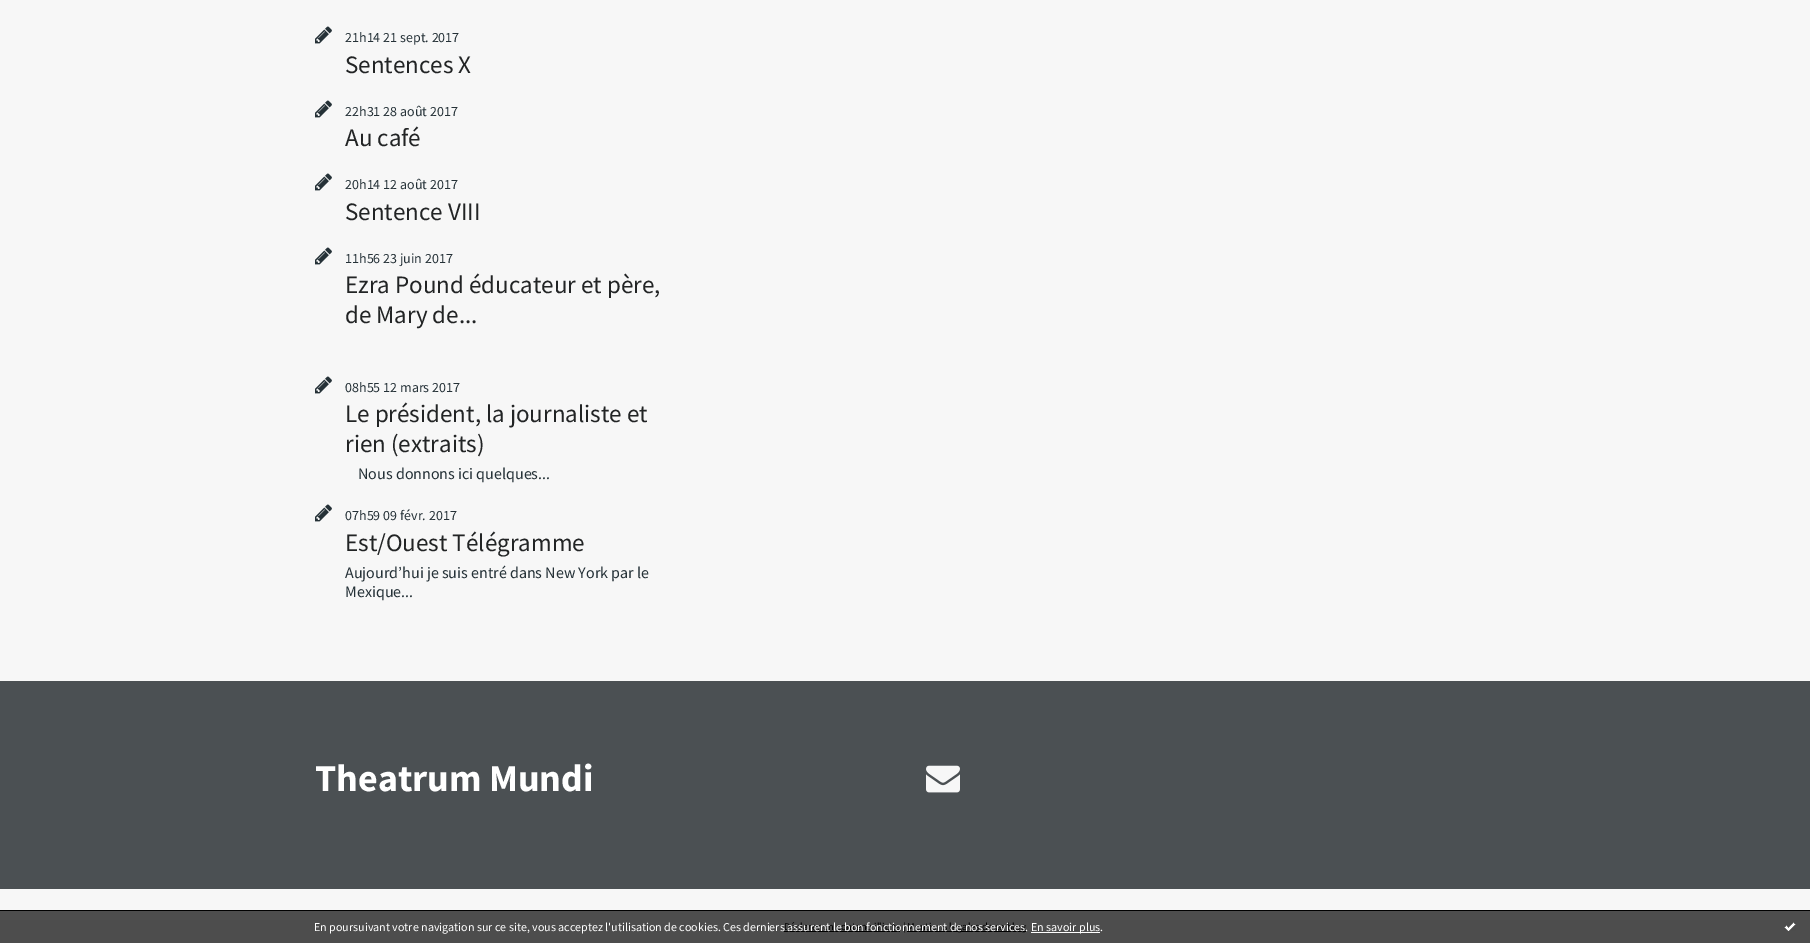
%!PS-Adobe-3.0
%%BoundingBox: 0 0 1810 943
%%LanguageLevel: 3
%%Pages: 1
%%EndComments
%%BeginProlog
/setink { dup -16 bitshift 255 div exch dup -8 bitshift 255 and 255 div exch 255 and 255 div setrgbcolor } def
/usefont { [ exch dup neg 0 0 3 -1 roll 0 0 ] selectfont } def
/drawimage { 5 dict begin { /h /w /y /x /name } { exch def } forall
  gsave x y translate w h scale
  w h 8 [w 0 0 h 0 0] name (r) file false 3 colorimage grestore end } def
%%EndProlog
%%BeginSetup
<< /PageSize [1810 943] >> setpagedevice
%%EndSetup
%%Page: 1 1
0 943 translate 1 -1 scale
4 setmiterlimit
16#F7F7F7 setink
0 0 1810 943 rectfill
(img1.raw) 315 26 17 18 drawimage
/SourceSansPro-Regular 14 usefont
16#253137 setink
345 42 moveto (21h14 21 sept. 2017) show
/SourceSansPro-Regular 25 usefont
16#222425 setink
345 73 moveto (Sentences X) show
(img1.raw) 315 100 17 18 drawimage
/SourceSansPro-Regular 14 usefont
16#253137 setink
345 116 moveto (22h31 28 août 2017) show
/SourceSansPro-Regular 25 usefont
16#222425 setink
345 146 moveto (Au café) show
(img1.raw) 315 173 17 18 drawimage
/SourceSansPro-Regular 14 usefont
16#253137 setink
345 189 moveto (20h14 12 août 2017) show
/SourceSansPro-Regular 25 usefont
16#222425 setink
345 220 moveto (Sentence VIII) show
(img1.raw) 315 247 17 18 drawimage
/SourceSansPro-Regular 14 usefont
16#253137 setink
345 263 moveto (11h56 23 juin 2017) show
/SourceSansPro-Regular 25 usefont
16#222425 setink
345 293 moveto (Ezra Pound éducateur et père,) show
345 323 moveto (de Mary de...) show
(img1.raw) 315 376 17 18 drawimage
/SourceSansPro-Regular 14 usefont
16#253137 setink
345 392 moveto (08h55 12 mars 2017) show
/SourceSansPro-Regular 25 usefont
16#222425 setink
345 422 moveto (Le président, la journaliste et) show
345 452 moveto (rien \(extraits\)) show
/SourceSansPro-Regular 16 usefont
16#253137 setink
358 479 moveto (Nous donnons ici quelques...) show
(img1.raw) 315 504 17 18 drawimage
/SourceSansPro-Regular 14 usefont
345 520 moveto (07h59 09 févr. 2017) show
/SourceSansPro-Regular 25 usefont
16#222425 setink
345 551 moveto (Est/Ouest Télégramme) show
/SourceSansPro-Regular 16 usefont
16#253137 setink
345 578 moveto (Aujourd’hui je suis entré dans New York par le) show
345 597 moveto (Mexique...) show
16#4B5053 setink
0 681 1810 208 rectfill
/SourceSansPro-Bold 38 usefont
16#FFFFFF setink
315 791 moveto (Theatrum Mundi) show
(img2.raw) 926 765 34 28 drawimage
[
    [0 911 1810 32 16#4D4D4D]
    [0 910 1810 1 16#000000]
    [784 931 116 1 16#000000]
] { aload pop setink rectfill } forall
/SourceSansPro-Regular 10.4 usefont
784 930 moveto (Déclarer un contenu illicite |) show
907 931 119 1 rectfill
907 930 moveto (Mentions légales de ce blog) show
/SourceSansPro-Regular 12 usefont
16#FFFFFF setink
314 931 moveto (En poursuivant votre navigation sur ce site, vous acceptez l'utilisation de cookies. Ces derniers assurent le bon fonctionnement de nos services.) show
1031 932 69 1 rectfill
1031 931 moveto (En savoir plus.) show
(img3.raw) 1784 922 12 9 drawimage
showpage
%%EOF
